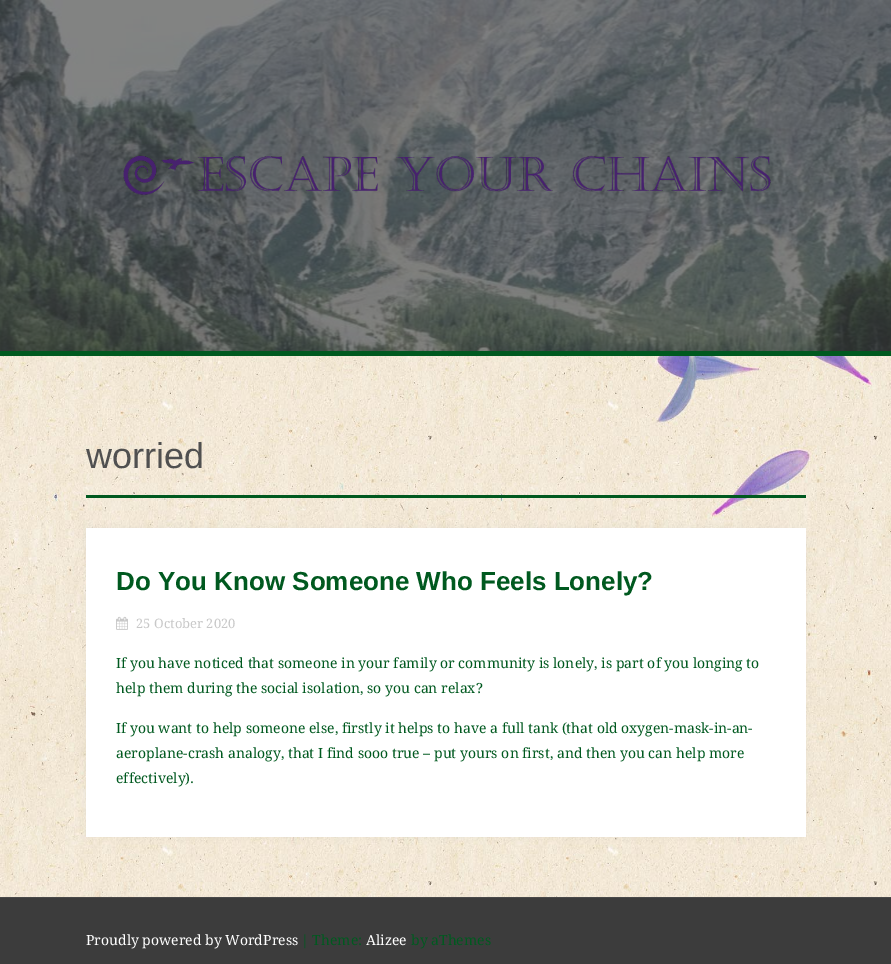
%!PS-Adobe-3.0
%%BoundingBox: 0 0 891 964
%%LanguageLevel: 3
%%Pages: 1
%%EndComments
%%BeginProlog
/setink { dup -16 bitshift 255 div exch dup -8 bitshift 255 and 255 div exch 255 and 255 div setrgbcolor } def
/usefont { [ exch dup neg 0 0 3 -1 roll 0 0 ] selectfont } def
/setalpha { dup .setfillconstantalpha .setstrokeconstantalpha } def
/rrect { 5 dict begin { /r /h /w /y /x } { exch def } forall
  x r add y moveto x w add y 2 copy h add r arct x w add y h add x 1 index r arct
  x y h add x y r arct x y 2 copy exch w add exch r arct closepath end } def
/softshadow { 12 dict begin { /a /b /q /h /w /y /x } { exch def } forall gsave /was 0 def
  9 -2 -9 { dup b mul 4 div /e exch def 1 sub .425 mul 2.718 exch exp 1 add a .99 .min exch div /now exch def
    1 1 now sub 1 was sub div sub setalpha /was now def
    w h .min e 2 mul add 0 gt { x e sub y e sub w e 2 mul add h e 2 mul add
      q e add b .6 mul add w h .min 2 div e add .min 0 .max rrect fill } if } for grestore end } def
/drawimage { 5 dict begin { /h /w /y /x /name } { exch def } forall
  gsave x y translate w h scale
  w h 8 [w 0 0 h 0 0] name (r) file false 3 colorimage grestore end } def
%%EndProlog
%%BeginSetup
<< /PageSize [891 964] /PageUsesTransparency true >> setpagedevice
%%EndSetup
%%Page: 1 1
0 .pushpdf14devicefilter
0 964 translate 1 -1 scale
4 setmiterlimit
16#FFFFFF setink
0 0 891 964 rectfill
(img1.raw) 0 356 891 541 drawimage
16#3C3C3C setink
0 0 891 351 rectfill
16#00591F setink
0 351 891 5 rectfill
(img2.raw) 0 0 891 351 drawimage
(img3.raw) 123 155 648 40 drawimage
86 495 720 3 rectfill
/Arimo-Regular 36 usefont
16#505050 setink
86 468 moveto (worried) show
16#828E94 setink
86 528 720 309 0 5 0.1 softshadow
16#FFFFFF setink
86 528 720 309 rectfill
/Arimo-Bold 26 usefont
16#00591F setink
116 590 moveto (Do You Know Someone Who Feels Lonely?) show
(img4.raw) 116 616 12 14 drawimage
/DroidSerif-Regular 13 usefont
16#C8C8C8 setink
136 628 moveto (25 October 2020) show
/DroidSerif-Regular 14 usefont
16#00591F setink
[
    [(If you have noticed that someone in your family or community is lonely, is part of you longing to) 116 668]
    [(help them during the social isolation, so you can relax?) 116 693]
    [(If you want to help someone else, firstly it helps to have a full tank \(that old oxygen-mask-in-an-) 116 733]
    [(aeroplane-crash analogy, that I find sooo true – put yours on first, and then you can help more) 116 758]
    [(effectively\).) 116 783]
] { aload pop moveto show } forall
16#3C3C3C setink
0 898 891 66 rectfill
16#494949 setink
0 897 891 1 rectfill
16#FFFFFF setink
86 945 moveto (Proudly powered by WordPress) show
16#00591F setink
301 945 moveto (| Theme:) show
16#FFFFFF setink
366 945 moveto (Alizee) show
16#00591F setink
411 945 moveto (by aThemes) show
.poppdf14devicefilter showpage
%%EOF
